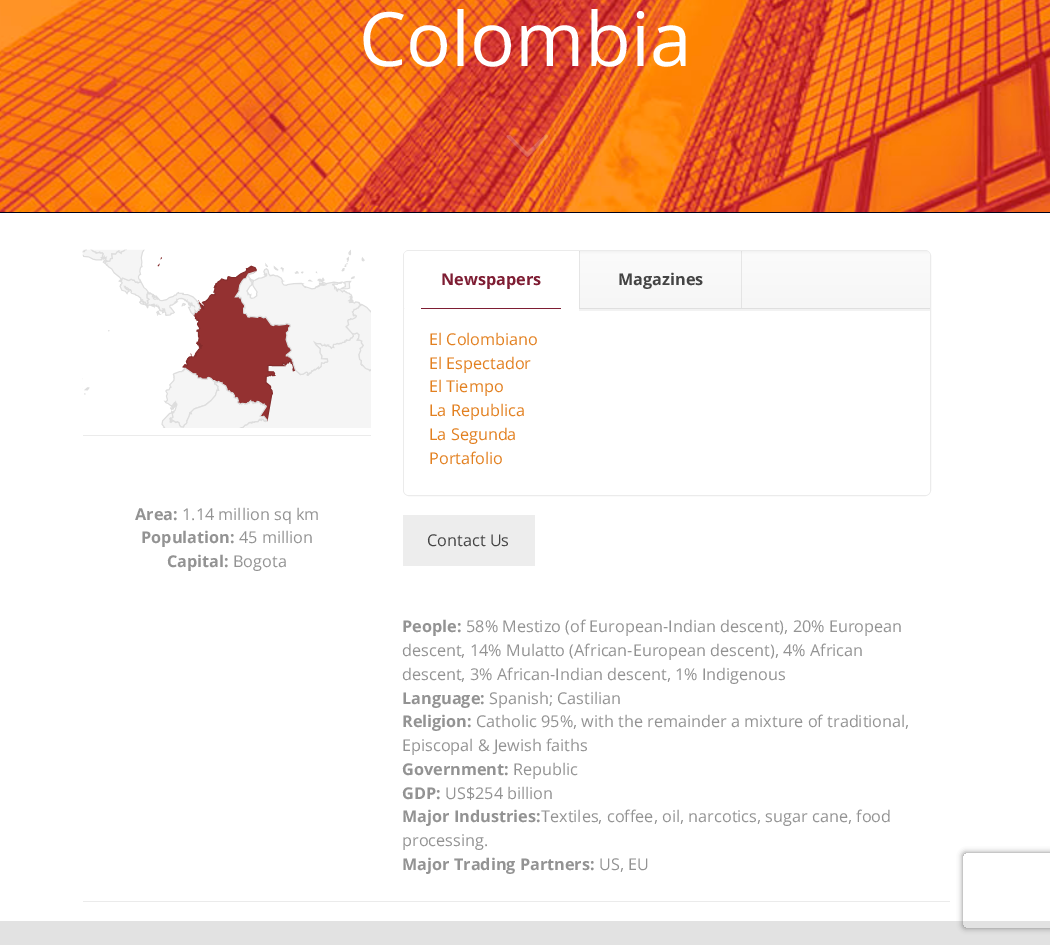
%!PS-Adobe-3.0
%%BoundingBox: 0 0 1050 945
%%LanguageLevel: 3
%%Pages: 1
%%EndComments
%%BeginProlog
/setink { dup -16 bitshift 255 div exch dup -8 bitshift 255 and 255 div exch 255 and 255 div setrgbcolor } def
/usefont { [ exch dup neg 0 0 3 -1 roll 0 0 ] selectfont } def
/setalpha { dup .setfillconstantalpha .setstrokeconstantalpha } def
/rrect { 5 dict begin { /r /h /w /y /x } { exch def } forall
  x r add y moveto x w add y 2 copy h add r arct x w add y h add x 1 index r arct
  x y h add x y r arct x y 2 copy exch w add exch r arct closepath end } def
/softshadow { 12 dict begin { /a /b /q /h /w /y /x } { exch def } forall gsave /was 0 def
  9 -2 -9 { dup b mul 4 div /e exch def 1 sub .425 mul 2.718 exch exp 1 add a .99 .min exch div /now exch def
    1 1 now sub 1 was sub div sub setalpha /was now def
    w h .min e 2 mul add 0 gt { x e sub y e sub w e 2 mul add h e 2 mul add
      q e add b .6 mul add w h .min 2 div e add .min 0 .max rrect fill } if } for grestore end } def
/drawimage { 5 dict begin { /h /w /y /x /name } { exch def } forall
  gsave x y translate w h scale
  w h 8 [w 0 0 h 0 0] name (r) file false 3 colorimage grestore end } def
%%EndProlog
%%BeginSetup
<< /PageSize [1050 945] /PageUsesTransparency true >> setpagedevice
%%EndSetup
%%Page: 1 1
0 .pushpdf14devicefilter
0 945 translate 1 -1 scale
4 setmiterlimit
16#FFFFFF setink
0 0 1050 945 rectfill
16#000119 setink
0 212 1050 1 rectfill
(img1.raw) 0 0 1050 212 drawimage
/OpenSans-Regular 75 usefont
16#FFFFFF setink
359 66 moveto (Colombia) show
0.2 setalpha
510 135 moveto 527 152 lineto 545 135 lineto 546 134 548 135 548 137 curveto 548 137 530 155 528 157 curveto 527 157 lineto 511 141 lineto 510 140 504 136 508 135 curveto closepath fill
1 setalpha
(img2.raw) 82 249 289 179 drawimage
16#EBEBEB setink
83 435 288 1 rectfill
/OpenSans-Bold 16.25 usefont
16#939393 setink
135 520 moveto (Area:) show
/OpenSans-Regular 16.25 usefont
182 520 moveto (1.14 million sq km) show
/OpenSans-Bold 16.25 usefont
141 543 moveto (Population:) show
/OpenSans-Regular 16.25 usefont
239 543 moveto (45 million) show
/OpenSans-Bold 16.25 usefont
167 567 moveto (Capital:) show
/OpenSans-Regular 16.25 usefont
233 567 moveto (Bogota) show
16#EBEBEB setink
403.5 250.5 527 245 5.5 rrect stroke
(img3.raw) 404 251 526 57 drawimage
16#DFDFDF setink
579 308 351 1 rectfill
0.08 setalpha
16#000000 setink
579 251 1 57 rectfill
1 setalpha
16#FFFFFF setink
409 251 moveto 579 251 lineto 579 308 lineto 404 308 lineto 404 256 lineto 404 253 406 251 409 251 curveto closepath fill
/OpenSans-Bold 16.25 usefont
16#7E1D33 setink
441 285 moveto (Newspapers) show
421 308 140 1 rectfill
0.08 setalpha
16#000000 setink
741 251 1 57 rectfill
1 setalpha
16#444444 setink
618 285 moveto (Magazines) show
16#FFFFFF setink
404 309 moveto 930 309 lineto 930 490 lineto 930 493 928 495 925 495 curveto 409 495 lineto 406 495 404 493 404 490 curveto closepath fill
16#F2F2F2 setink
579 309 351 2 rectfill
/OpenSans-Regular 16.25 usefont
16#E28020 setink
[
    [(El Colombiano) 429 345]
    [(El Espectador) 429 369]
    [(El Tiempo) 429 392]
    [(La Republica) 429 416]
    [(La Segunda) 429 440]
    [(Portafolio) 429 464]
] { aload pop moveto show } forall
16#EDEDED setink
403 515 132 51 rectfill
16#444444 setink
427 546 moveto (Contact Us) show
/OpenSans-Bold 16.25 usefont
16#939393 setink
402 632 moveto (People:) show
/OpenSans-Regular 16.25 usefont
[
    [(58% Mestizo \(of European-Indian descent\), 20% European) 466 632]
    [(descent, 14% Mulatto \(African-European descent\), 4% African) 402 656]
    [(descent, 3% African-Indian descent, 1% Indigenous) 402 680]
] { aload pop moveto show } forall
/OpenSans-Bold 16.25 usefont
402 704 moveto (Language:) show
/OpenSans-Regular 16.25 usefont
489 704 moveto (Spanish; Castilian) show
/OpenSans-Bold 16.25 usefont
402 727 moveto (Religion:) show
/OpenSans-Regular 16.25 usefont
476 727 moveto (Catholic 95%, with the remainder a mixture of traditional,) show
402 751 moveto (Episcopal & Jewish faiths) show
/OpenSans-Bold 16.25 usefont
402 775 moveto (Government:) show
/OpenSans-Regular 16.25 usefont
513 775 moveto (Republic) show
/OpenSans-Bold 16.25 usefont
402 799 moveto (GDP:) show
/OpenSans-Regular 16.25 usefont
445 799 moveto (US$254 billion) show
/OpenSans-Bold 16.25 usefont
402 822 moveto (Major Industries:) show
/OpenSans-Regular 16.25 usefont
541 822 moveto (Textiles, coffee, oil, narcotics, sugar cane, food) show
402 846 moveto (processing.) show
/OpenSans-Bold 16.25 usefont
402 870 moveto (Major Trading Partners:) show
/OpenSans-Regular 16.25 usefont
599 870 moveto (US, EU) show
16#EBEBEB setink
83 901 867 1 rectfill
16#E2E2E2 setink
0 921 1050 24 rectfill
gsave
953 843 moveto 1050 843 lineto 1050 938 lineto 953 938 lineto closepath 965.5 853 moveto 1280.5 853 lineto 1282 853 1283 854 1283 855.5 curveto 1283 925.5 lineto 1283 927 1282 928 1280.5 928 curveto 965.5 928 lineto 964 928 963 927 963 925.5 curveto 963 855.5 lineto 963 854 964 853 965.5 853 curveto closepath eoclip newpath
16#808080 setink
963 853 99 75 2.5 3 1 softshadow
grestore
.poppdf14devicefilter showpage
%%EOF
